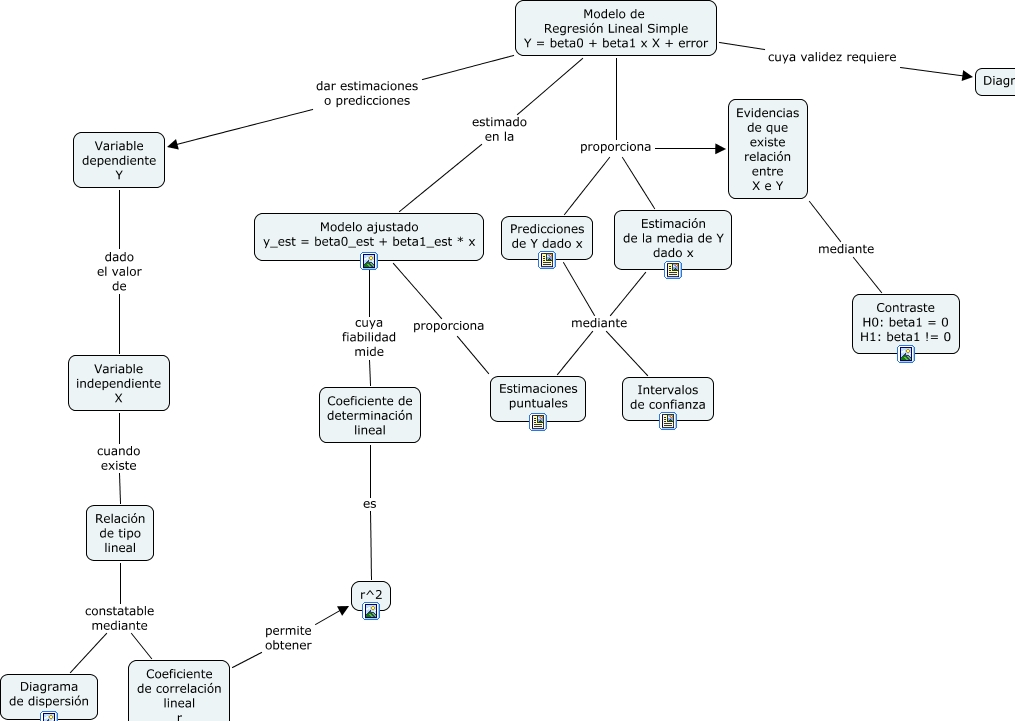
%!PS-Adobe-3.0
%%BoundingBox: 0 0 1015 721
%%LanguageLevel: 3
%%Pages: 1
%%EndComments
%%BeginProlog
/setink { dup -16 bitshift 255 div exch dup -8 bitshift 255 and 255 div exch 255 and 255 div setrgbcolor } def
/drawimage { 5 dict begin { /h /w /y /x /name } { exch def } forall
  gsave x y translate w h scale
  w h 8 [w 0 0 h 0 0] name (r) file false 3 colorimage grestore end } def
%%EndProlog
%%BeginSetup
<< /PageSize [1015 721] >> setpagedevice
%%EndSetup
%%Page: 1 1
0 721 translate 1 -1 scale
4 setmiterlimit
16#FFFFFF setink
0 0 1015 721 rectfill
(img1.raw) 0 0 1015 721 drawimage
showpage
%%EOF
